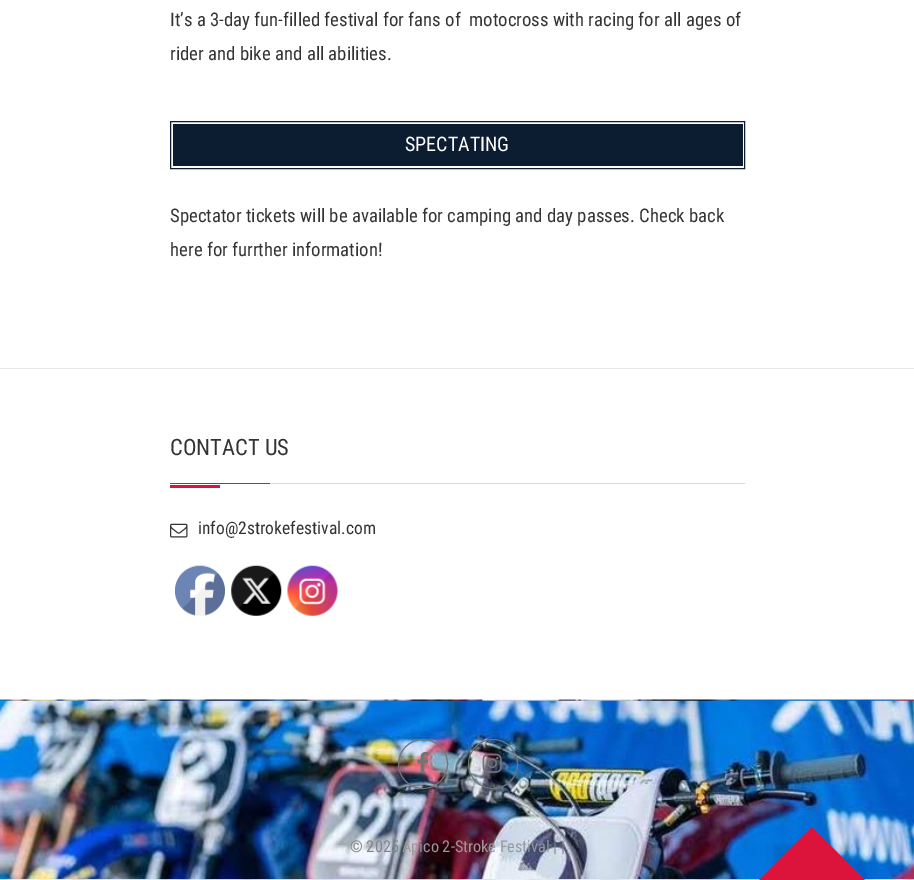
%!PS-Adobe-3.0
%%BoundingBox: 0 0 914 880
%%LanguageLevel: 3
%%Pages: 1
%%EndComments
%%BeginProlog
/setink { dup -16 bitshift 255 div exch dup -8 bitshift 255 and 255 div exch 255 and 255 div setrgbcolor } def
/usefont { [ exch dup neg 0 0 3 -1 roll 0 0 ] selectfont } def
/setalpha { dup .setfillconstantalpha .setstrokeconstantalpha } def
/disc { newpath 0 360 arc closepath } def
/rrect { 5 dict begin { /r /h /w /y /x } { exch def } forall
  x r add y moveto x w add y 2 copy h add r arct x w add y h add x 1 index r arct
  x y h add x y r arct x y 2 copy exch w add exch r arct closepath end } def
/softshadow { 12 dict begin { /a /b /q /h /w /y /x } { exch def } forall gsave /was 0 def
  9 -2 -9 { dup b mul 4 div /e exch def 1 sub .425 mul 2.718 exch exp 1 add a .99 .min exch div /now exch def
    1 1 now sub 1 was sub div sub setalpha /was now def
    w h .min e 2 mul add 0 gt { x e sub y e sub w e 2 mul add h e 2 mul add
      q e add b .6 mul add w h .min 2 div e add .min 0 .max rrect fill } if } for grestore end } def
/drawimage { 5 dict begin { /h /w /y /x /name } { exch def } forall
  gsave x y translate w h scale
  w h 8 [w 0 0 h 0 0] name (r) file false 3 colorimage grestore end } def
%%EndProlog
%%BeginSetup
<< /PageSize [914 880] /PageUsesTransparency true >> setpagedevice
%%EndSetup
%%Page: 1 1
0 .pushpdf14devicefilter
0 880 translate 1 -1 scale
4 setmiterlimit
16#FFFFFF setink
0 0 914 880 rectfill
/RobotoCondensed-Regular 18.75 usefont
16#333333 setink
170 26 moveto (It’s a 3-day fun-filled festival for fans of  motocross with racing for all ages of) show
170 60 moveto (rider and bike and all abilities.) show
16#0D1D31 setink
173 124 570 42 rectfill
170.5 121.5 574 47 rectstroke
/RobotoCondensed-Regular 20 usefont
16#FFFFFF setink
405 151 moveto (SPECTATING) show
/RobotoCondensed-Regular 18.75 usefont
16#333333 setink
170 222 moveto (Spectator tickets will be available for camping and day passes. Check back) show
170 256 moveto (here for furrther information!) show
16#E6E6E6 setink
0 368 914 1 rectfill
16#D9D9D9 setink
270 483 475 1 rectfill
/RobotoCondensed-Regular 22.5 usefont
16#333333 setink
170 455 moveto (CONTACT US) show
16#DC143C setink
170 483 100 1 rectfill
170 485 50 3 rectfill
(img1.raw) 170 523 18 15 drawimage
/RobotoCondensed-Regular 17.5 usefont
16#333333 setink
198 534 moveto (info@2strokefestival.com) show
(img2.raw) 175 565 50 51 drawimage
(img3.raw) 231 565 51 51 drawimage
(img4.raw) 287 565 51 51 drawimage
16#F8F8F8 setink
0 879 914 1 rectfill
(img5.raw) 0 699 914 181 drawimage
0.1 setalpha
16#000000 setink
0 700 914 1 rectfill
1 setalpha
16#747474 setink
423 764 24.5 disc stroke
(img6.raw) 417 752 12 21 drawimage
493 764 24.5 disc stroke
(img7.raw) 482 753 20 20 drawimage
/RobotoCondensed-Regular 16.25 usefont
16#848484 setink
350 852 moveto (© 2025) show
16#999999 setink
402 852 moveto (Apico 2-Stroke Festival) show
16#848484 setink
553 852 moveto (| |) show
16#000000 setink
774 845 75 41 0 2 0.08 softshadow
16#DC143C setink
812 827 moveto 865 880 lineto 812 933 lineto 759 880 lineto closepath fill
.poppdf14devicefilter showpage
%%EOF
